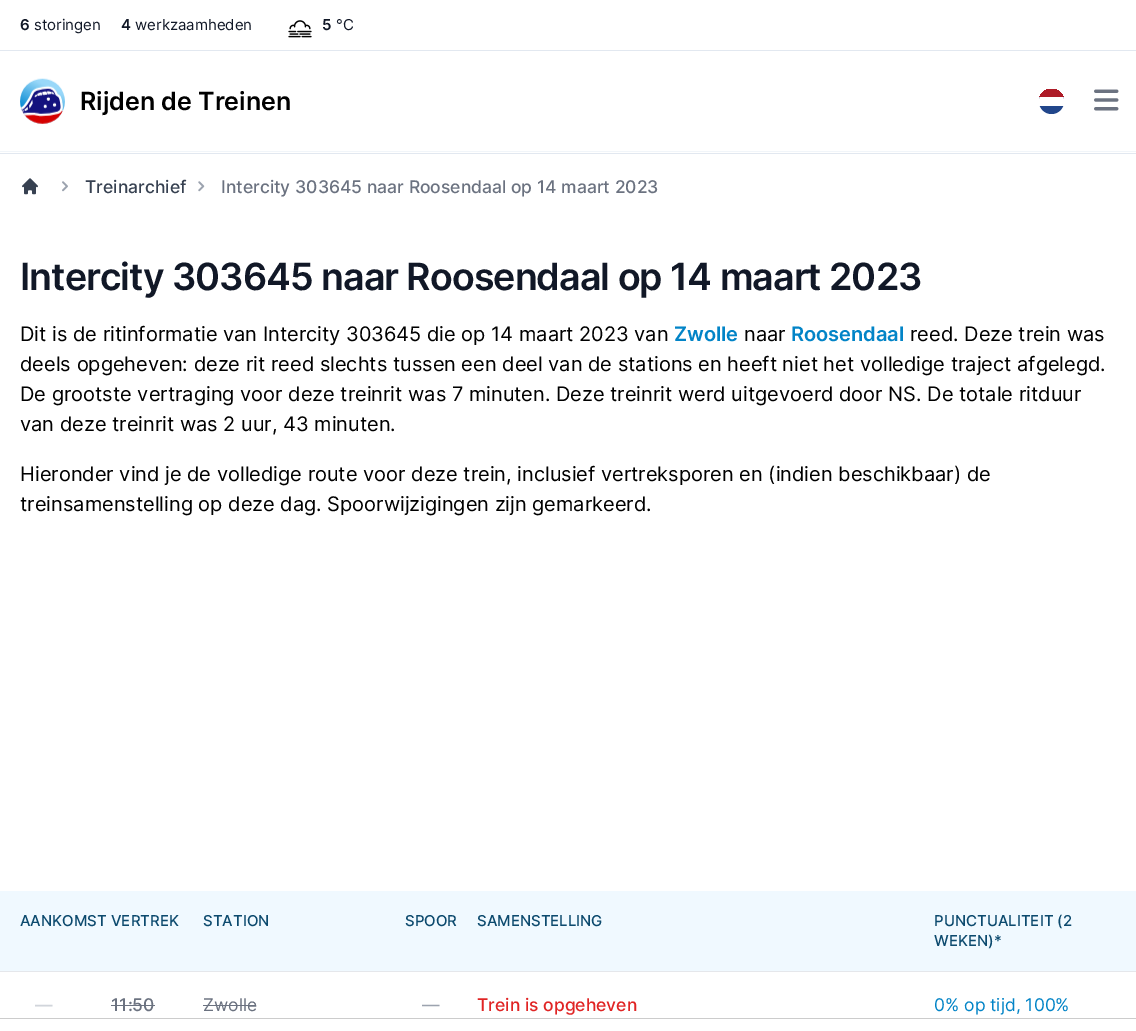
%!PS-Adobe-3.0
%%BoundingBox: 0 0 1136 1031
%%LanguageLevel: 3
%%Pages: 1
%%EndComments
%%BeginProlog
/setink { dup -16 bitshift 255 div exch dup -8 bitshift 255 and 255 div exch 255 and 255 div setrgbcolor } def
/usefont { [ exch dup neg 0 0 3 -1 roll 0 0 ] selectfont } def
/disc { newpath 0 360 arc closepath } def
/rrect { 5 dict begin { /r /h /w /y /x } { exch def } forall
  x r add y moveto x w add y 2 copy h add r arct x w add y h add x 1 index r arct
  x y h add x y r arct x y 2 copy exch w add exch r arct closepath end } def
/drawimage { 5 dict begin { /h /w /y /x /name } { exch def } forall
  gsave x y translate w h scale
  w h 8 [w 0 0 h 0 0] name (r) file false 3 colorimage grestore end } def
%%EndProlog
%%BeginSetup
<< /PageSize [1136 1031] >> setpagedevice
%%EndSetup
%%Page: 1 1
0 1031 translate 1 -1 scale
4 setmiterlimit
16#FFFFFF setink
0 0 1136 1031 rectfill
16#E2E8F0 setink
0 50 1136 1 rectfill
/Inter-SemiBold 15 usefont
16#111827 setink
20 30 moveto (6) show
/Inter-Regular 15 usefont
34 30 moveto (storingen) show
/Inter-SemiBold 15 usefont
121 30 moveto (4) show
/Inter-Regular 15 usefont
135 30 moveto (werkzaamheden) show
(img1.raw) 288 20 24 18 drawimage
/Inter-SemiBold 15 usefont
322 30 moveto (5) show
/Inter-Regular 15 usefont
336 30 moveto (°C) show
16#F1F5F9 setink
0 151 1136 1 rectfill
(img2.raw) 20 78 45 46 drawimage
/Inter-SemiBold 25 usefont
16#000000 setink
80 110 moveto (Rijden de Treinen) show
16#21468B setink
1051.5 101.5 12.5 disc fill
gsave
1039 89 25 25 12.5 rrect clip newpath
16#FFFFFF setink
1051.5 89 moveto 1058.5 89 1064 94.5 1064 101.5 curveto 1064 106 lineto 1039 106 lineto 1039 101.5 lineto 1039 94.5 1044.5 89 1051.5 89 curveto closepath fill
16#AE1C28 setink
1039 89 25 8 rectfill
grestore
(img3.raw) 1094 89 25 22 drawimage
16#E2E8F0 setink
0 153 1136 1 rectfill
(img4.raw) 22 178 16 17 drawimage
(img5.raw) 62 181 6 11 drawimage
/Inter-Medium 17.5 usefont
16#374151 setink
85 193 moveto (Treinarchief) show
(img6.raw) 198 181 7 11 drawimage
16#6B7280 setink
221 193 moveto (Intercity 303645 naar Roosendaal op 14 maart 2023) show
/Inter-SemiBold 37.5 usefont
16#111827 setink
20 290 moveto -0.95 0 (Intercity 303645 naar Roosendaal op 14 maart 2023) ashow
/Inter-Regular 20 usefont
16#000000 setink
20 341 moveto (Dit is de ritinformatie van Intercity 303645 die op 14 maart 2023 van) show
/Inter-SemiBold 20 usefont
16#0284C7 setink
674 341 moveto (Zwolle) show
/Inter-Regular 20 usefont
16#000000 setink
744 341 moveto (naar) show
/Inter-SemiBold 20 usefont
16#0284C7 setink
791 341 moveto (Roosendaal) show
/Inter-Regular 20 usefont
16#000000 setink
[
    [(reed. Deze trein was) 910 341]
    [(deels opgeheven: deze rit reed slechts tussen een deel van de stations en heeft niet het volledige traject afgelegd.) 20 371]
    [(De grootste vertraging voor deze treinrit was 7 minuten. Deze treinrit werd uitgevoerd door NS. De totale ritduur) 20 401]
    [(van deze treinrit was 2 uur, 43 minuten.) 20 431]
    [(Hieronder vind je de volledige route voor deze trein, inclusief vertreksporen en \(indien beschikbaar\) de) 20 481]
    [(treinsamenstelling op deze dag. Spoorwijzigingen zijn gemarkeerd.) 20 511]
] { aload pop moveto show } forall
16#F0F9FF setink
0 891 1136 80 rectfill
16#E5E7EB setink
0 971 1136 1 rectfill
/Inter-Medium 15 usefont
16#0C4A6E setink
[
    [(AANKOMST) 20 926]
    [(VERTREK) 111 926]
    [(STATION) 203 926]
    [(SPOOR) 405 926]
    [(SAMENSTELLING) 477 926]
    [(PUNCTUALITEIT \(2) 934 926]
    [(WEKEN\)*) 934 946]
] { aload pop moveto show } forall
/Inter-Medium 17.5 usefont
16#D1D5DB setink
35 1011 moveto (—) show
16#6B7280 setink
111 1011 moveto (11:50) show
111 1005 44 1 rectfill
/Inter-Regular 17.5 usefont
203 1011 moveto (Zwolle) show
203 1005 53 1 rectfill
16#9CA3AF setink
422 1011 moveto (—) show
/Inter-Medium 17.5 usefont
16#E02424 setink
477 1011 moveto (Trein is opgeheven) show
/Inter-Regular 17.5 usefont
16#0284C7 setink
934 1011 moveto (0% op tijd, 100%) show
16#CCCCCC setink
0 1018 1136 1 rectfill
showpage
%%EOF
